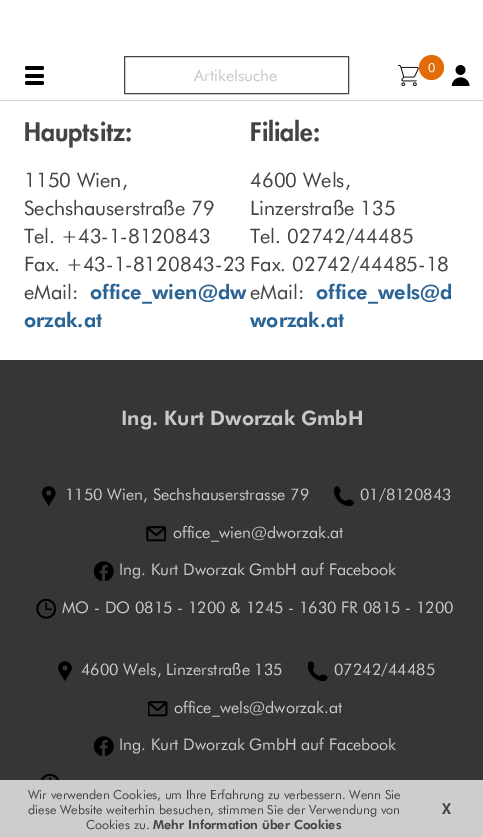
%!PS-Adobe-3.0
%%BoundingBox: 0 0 483 837
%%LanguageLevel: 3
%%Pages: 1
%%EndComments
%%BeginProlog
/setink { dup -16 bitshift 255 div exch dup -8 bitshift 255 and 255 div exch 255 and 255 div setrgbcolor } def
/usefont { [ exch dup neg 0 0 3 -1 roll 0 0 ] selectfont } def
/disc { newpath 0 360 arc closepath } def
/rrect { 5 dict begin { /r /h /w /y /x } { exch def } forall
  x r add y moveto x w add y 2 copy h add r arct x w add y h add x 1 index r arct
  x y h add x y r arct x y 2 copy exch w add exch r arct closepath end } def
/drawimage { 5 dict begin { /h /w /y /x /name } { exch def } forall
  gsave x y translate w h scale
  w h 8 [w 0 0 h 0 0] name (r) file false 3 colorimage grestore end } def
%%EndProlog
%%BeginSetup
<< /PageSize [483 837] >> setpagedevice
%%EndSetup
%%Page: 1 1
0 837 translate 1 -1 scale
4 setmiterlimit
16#FFFFFF setink
0 0 483 837 rectfill
16#444444 setink
124.5 56.5 224 37 rectstroke
/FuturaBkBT-Regular 16 usefont
16#C9C9C9 setink
194 81 moveto (Artikelsuche) show
(img1.raw) 398 65 21 21 drawimage
16#E36C0A setink
431.5 67.5 12.5 disc fill
/FuturaBkBT-Regular 12.5 usefont
16#FFFFFF setink
428 72 moveto (0) show
(img2.raw) 451 65 19 21 drawimage
16#D3D3D3 setink
0 100 483 1 rectfill
16#000000 setink
25 66 19 4 2 rrect fill
25 74 19 4 2 rrect fill
25 81 19 4 2 rrect fill
/Futura-Black 25 usefont
16#444444 setink
24 141 moveto (Hauptsitz:) show
/FuturaBkBT-Regular 20 usefont
[
    [(1150 Wien,) 24 187]
    [(Sechshauserstraße 79) 24 215]
    [(Tel. +43-1-8120843) 24 243]
    [(Fax. +43-1-8120843-23) 24 271]
    [(eMail:) 24 299]
] { aload pop moveto show } forall
/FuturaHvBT-Black 20 usefont
16#2A6496 setink
90 299 moveto (office_wien@dw) show
24 327 moveto (orzak.at) show
/Futura-Black 25 usefont
16#444444 setink
250 141 moveto (Filiale:) show
/FuturaBkBT-Regular 20 usefont
[
    [(4600 Wels,) 250 187]
    [(Linzerstraße 135) 250 215]
    [(Tel. 02742/44485) 250 243]
    [(Fax. 02742/44485-18) 250 271]
    [(eMail:) 250 299]
] { aload pop moveto show } forall
/FuturaHvBT-Black 20 usefont
16#2A6496 setink
316 299 moveto (office_wels@d) show
250 327 moveto (worzak.at) show
16#363636 setink
0 360 483 420 rectfill
16#C9C9C9 setink
121 425 moveto (Ing. Kurt Dworzak GmbH) show
(img3.raw) 41 486 15 20 drawimage
/FuturaBkBT-Regular 16 usefont
65 500 moveto (1150 Wien, Sechshauserstrasse 79) show
(img4.raw) 334 486 20 20 drawimage
360 500 moveto (01/8120843) show
(img5.raw) 146 526 20 16 drawimage
173 538 moveto (office_wien@dworzak.at) show
(img6.raw) 94 561 20 20 drawimage
119 575 moveto (Ing. Kurt Dworzak GmbH auf Facebook) show
(img7.raw) 36 599 20 20 drawimage
62 613 moveto (MO - DO 0815 - 1200 & 1245 - 1630 FR 0815 - 1200) show
(img8.raw) 58 661 14 20 drawimage
81 675 moveto (4600 Wels, Linzerstraße 135) show
(img9.raw) 308 661 20 20 drawimage
334 675 moveto (07242/44485) show
(img10.raw) 148 701 20 16 drawimage
174 713 moveto (office_wels@dworzak.at) show
(img6.raw) 94 736 20 20 drawimage
119 750 moveto (Ing. Kurt Dworzak GmbH auf Facebook) show
(img11.raw) 40 774 20 6 drawimage
16#CDCDCD setink
0 780 483 57 rectfill
/FuturaBkBT-Regular 12.5 usefont
16#444444 setink
[
    [(Wir verwenden Cookies, um Ihre Erfahrung zu verbessern. Wenn Sie) 28 799]
    [(diese Website weiterhin besuchen, stimmen Sie der Verwendung von) 28 814]
    [(Cookies zu.) 86 829]
] { aload pop moveto show } forall
/FuturaHvBT-Black 12.5 usefont
153 829 moveto (Mehr Information über Cookies) show
/FuturaHvBT-Black 15 usefont
442 814 moveto (X) show
showpage
%%EOF
